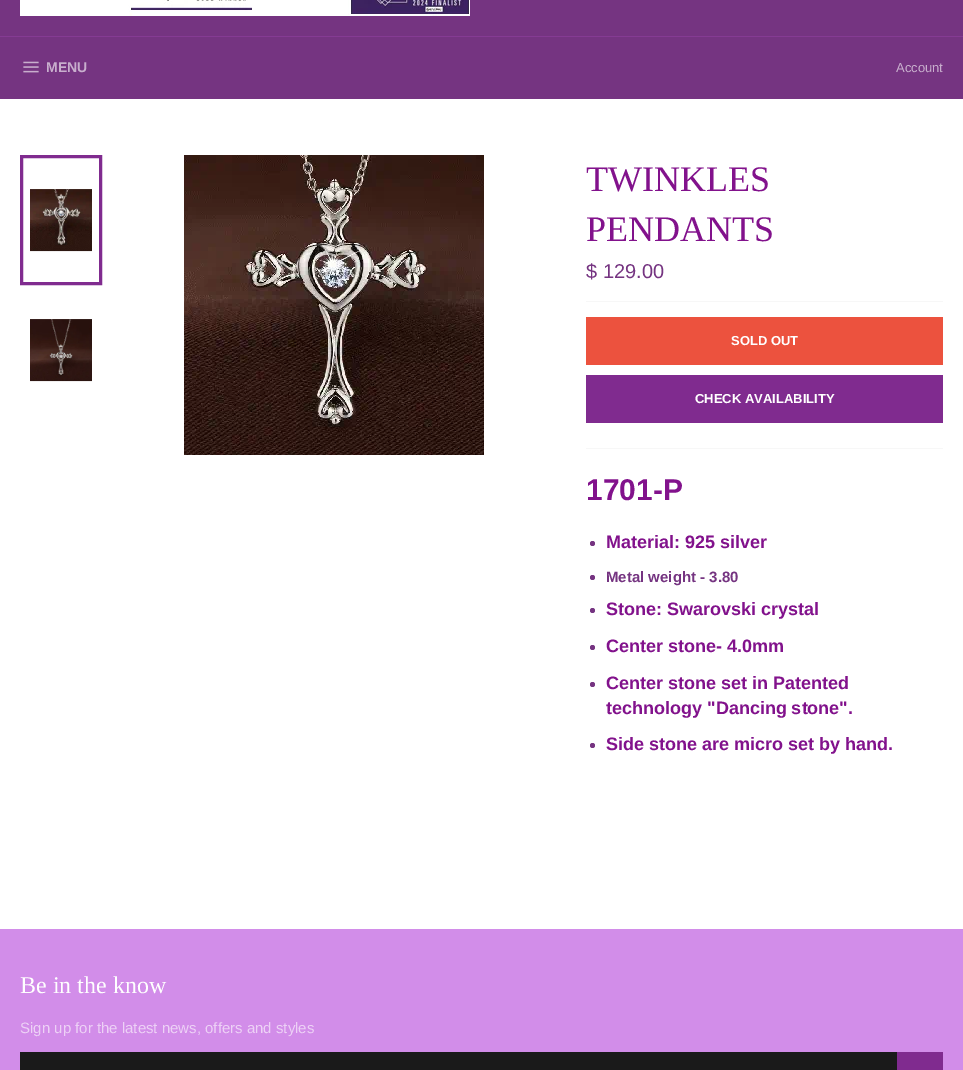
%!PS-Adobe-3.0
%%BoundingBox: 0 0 963 1070
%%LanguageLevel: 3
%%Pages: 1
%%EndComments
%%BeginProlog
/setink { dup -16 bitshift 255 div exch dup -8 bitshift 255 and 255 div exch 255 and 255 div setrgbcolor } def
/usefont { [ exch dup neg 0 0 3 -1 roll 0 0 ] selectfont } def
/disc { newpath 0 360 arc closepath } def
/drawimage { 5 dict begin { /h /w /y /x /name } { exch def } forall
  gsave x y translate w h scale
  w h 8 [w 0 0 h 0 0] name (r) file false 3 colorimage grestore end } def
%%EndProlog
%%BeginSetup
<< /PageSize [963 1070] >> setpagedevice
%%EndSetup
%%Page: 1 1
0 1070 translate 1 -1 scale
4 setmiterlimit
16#FFFFFF setink
0 0 963 1070 rectfill
16#753481 setink
0 0 963 36 rectfill
(img1.raw) 20 0 450 16 drawimage
0 37 963 62 rectfill
16#853B93 setink
0 36 963 1 rectfill
(img2.raw) 23 61 16 12 drawimage
/LiberationSans-Bold 14 usefont
16#C8AECD setink
46 72 moveto (MENU) show
/LiberationSans-Regular 13 usefont
896 72 moveto (Account) show
(img3.raw) 30 189 62 63 drawimage
16#802B8F setink
3 setlinewidth
21.5 156.5 79 127 rectstroke
(img4.raw) 30 319 62 63 drawimage
(img5.raw) 184 155 300 300 drawimage
/LiberationSerif-Regular 36 usefont
16#82128C setink
586 191 moveto (TWINKLES) show
586 241 moveto (PENDANTS) show
/LiberationSans-Regular 20 usefont
16#753481 setink
586 278 moveto ($ 129.00) show
16#F7F7F7 setink
586 301 357 1 rectfill
16#EC523E setink
586 317 357 48 rectfill
/LiberationSans-Bold 13 usefont
16#FFFFFF setink
731 345 moveto (SOLD OUT) show
16#802B8F setink
586 375 357 48 rectfill
16#FFFFFF setink
695 403 moveto (CHECK AVAILABILITY) show
16#F7F7F7 setink
586 448 357 1 rectfill
/LiberationSans-Bold 30 usefont
16#82128C setink
586 500 moveto (1701-P) show
16#753481 setink
592.5 543.5 2.5 disc fill
/LiberationSans-Bold 18 usefont
16#82128C setink
606 548 moveto (Material: 925 silver) show
16#753481 setink
592.5 577.5 2.5 disc fill
/LiberationSans-Bold 15 usefont
606 582 moveto (Metal weight - 3.80) show
592.5 610.5 2.5 disc fill
/LiberationSans-Bold 18 usefont
16#82128C setink
606 615 moveto (Stone: Swarovski crystal) show
16#753481 setink
592.5 647.5 2.5 disc fill
16#82128C setink
606 652 moveto (Center stone- 4.0mm) show
16#753481 setink
592.5 684.5 2.5 disc fill
16#82128C setink
606 689 moveto (Center stone set in Patented) show
606 714 moveto (technology "Dancing stone".) show
16#753481 setink
592.5 745.5 2.5 disc fill
16#82128C setink
606 750 moveto (Side stone are micro set by hand.) show
16#D28DE9 setink
0 929 963 141 rectfill
/LiberationSerif-Regular 24 usefont
16#FFFFFF setink
20 993 moveto (Be in the know) show
/LiberationSans-Regular 15 usefont
16#EDD1F6 setink
20 1033 moveto (Sign up for the latest news, offers and styles) show
16#1A1A1A setink
20 1052 877 18 rectfill
16#802B8F setink
897 1052 46 18 rectfill
showpage
%%EOF
